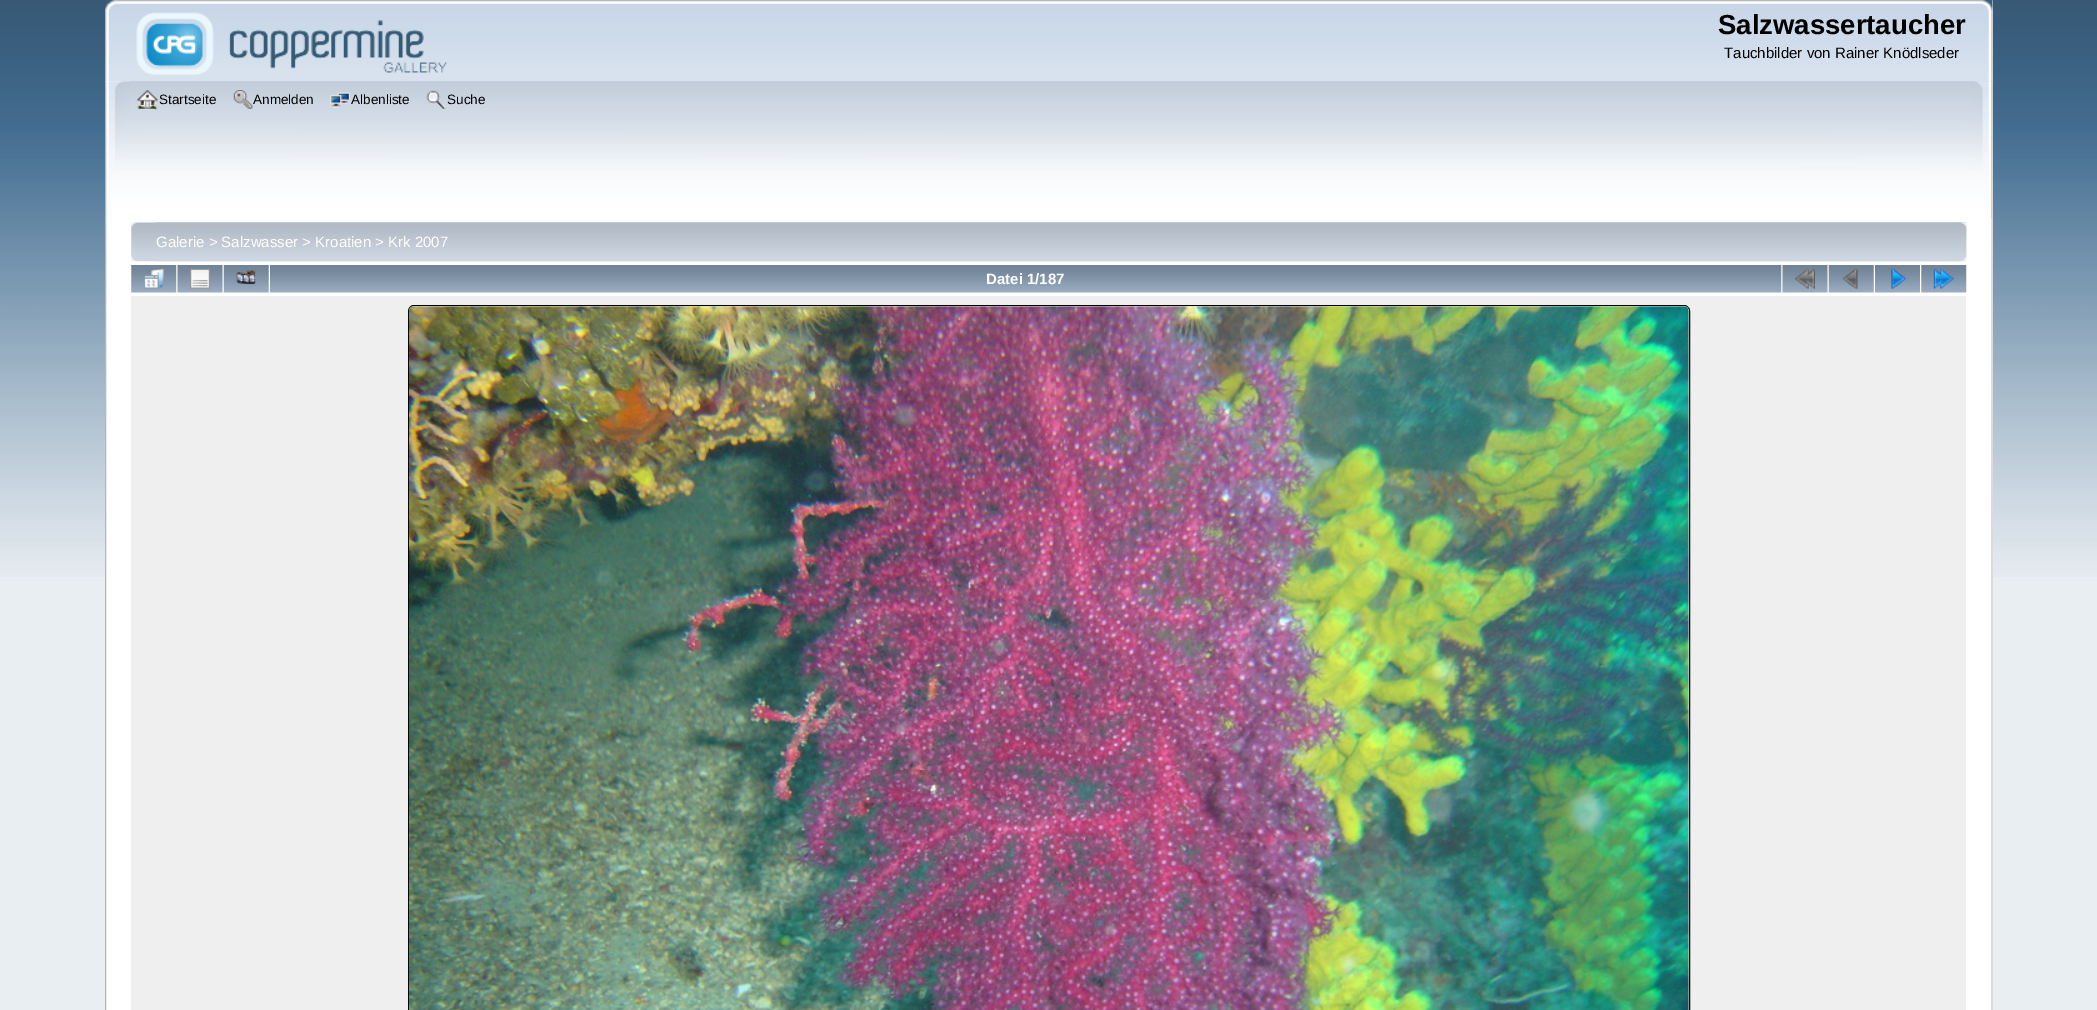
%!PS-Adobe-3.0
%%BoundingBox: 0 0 2097 1010
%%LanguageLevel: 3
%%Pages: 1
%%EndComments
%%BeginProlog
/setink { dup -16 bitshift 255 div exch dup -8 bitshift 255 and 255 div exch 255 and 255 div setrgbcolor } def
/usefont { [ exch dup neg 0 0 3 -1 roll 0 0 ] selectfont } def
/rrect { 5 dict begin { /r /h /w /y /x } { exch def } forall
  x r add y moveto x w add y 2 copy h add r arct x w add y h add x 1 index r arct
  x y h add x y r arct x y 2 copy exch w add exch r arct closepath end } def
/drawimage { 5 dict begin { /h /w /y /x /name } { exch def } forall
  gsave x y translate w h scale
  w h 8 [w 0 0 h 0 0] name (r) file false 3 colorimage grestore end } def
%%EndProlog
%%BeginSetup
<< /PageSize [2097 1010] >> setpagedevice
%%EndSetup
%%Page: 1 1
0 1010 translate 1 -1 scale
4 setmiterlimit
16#E9EEF2 setink
0 0 2097 1010 rectfill
(img1.raw) 0 0 2097 577 drawimage
(img2.raw) 105 0 1888 81 drawimage
(img3.raw) 130 0 1863 81 drawimage
(img4.raw) 136 12 311 63 drawimage
/LiberationSans-Bold 27.5 usefont
16#000000 setink
1718 34 moveto (Salzwassertaucher) show
/LiberationSans-Regular 15 usefont
1724 58 moveto (Tauchbilder von Rainer Knödlseder) show
16#FEFEFE setink
105 81 1888 138 rectfill
(img5.raw) 105 81 1888 138 drawimage
(img6.raw) 130 81 1863 138 drawimage
(img7.raw) 137 90 21 20 drawimage
/LiberationSans-Regular 13.5 usefont
16#000000 setink
159 104 moveto (Startseite) show
(img8.raw) 233 90 20 19 drawimage
253 104 moveto (Anmelden) show
(img9.raw) 330 92 20 16 drawimage
351 104 moveto (Albenliste) show
(img10.raw) 426 90 20 19 drawimage
447 104 moveto (Suche) show
16#FFFFFF setink
1992 219 1 791 rectfill
(img11.raw) 105 218 1887 792 drawimage
(img12.raw) 1991 218 2 792 drawimage
(img13.raw) 131 222 1836 40 drawimage
(img14.raw) 156 222 1811 40 drawimage
/LiberationSans-Regular 15 usefont
156 247 moveto (Galerie > Salzwasser > Kroatien > Krk 2007) show
(img15.raw) 131 265 46 28 drawimage
(img16.raw) 144 268 20 21 drawimage
(img17.raw) 177 265 46 28 drawimage
(img18.raw) 190 268 20 21 drawimage
(img19.raw) 223 265 46 28 drawimage
(img20.raw) 236 270 21 15 drawimage
(img21.raw) 270 265 1512 28 drawimage
/LiberationSans-Bold 15 usefont
986 284 moveto (Datei 1/187) show
(img17.raw) 1782 265 46 28 drawimage
(img22.raw) 1795 268 20 21 drawimage
(img19.raw) 1828 265 46 28 drawimage
(img23.raw) 1842 268 16 21 drawimage
(img24.raw) 1875 265 45 28 drawimage
(img25.raw) 1891 268 16 21 drawimage
(img15.raw) 1921 265 46 28 drawimage
(img26.raw) 1933 268 21 21 drawimage
16#EFEFEF setink
131 296 1835 714 rectfill
16#000000 setink
408.5 305.5 1281 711 5.5 rrect stroke
(img27.raw) 408 306 1281 704 drawimage
showpage
%%EOF
